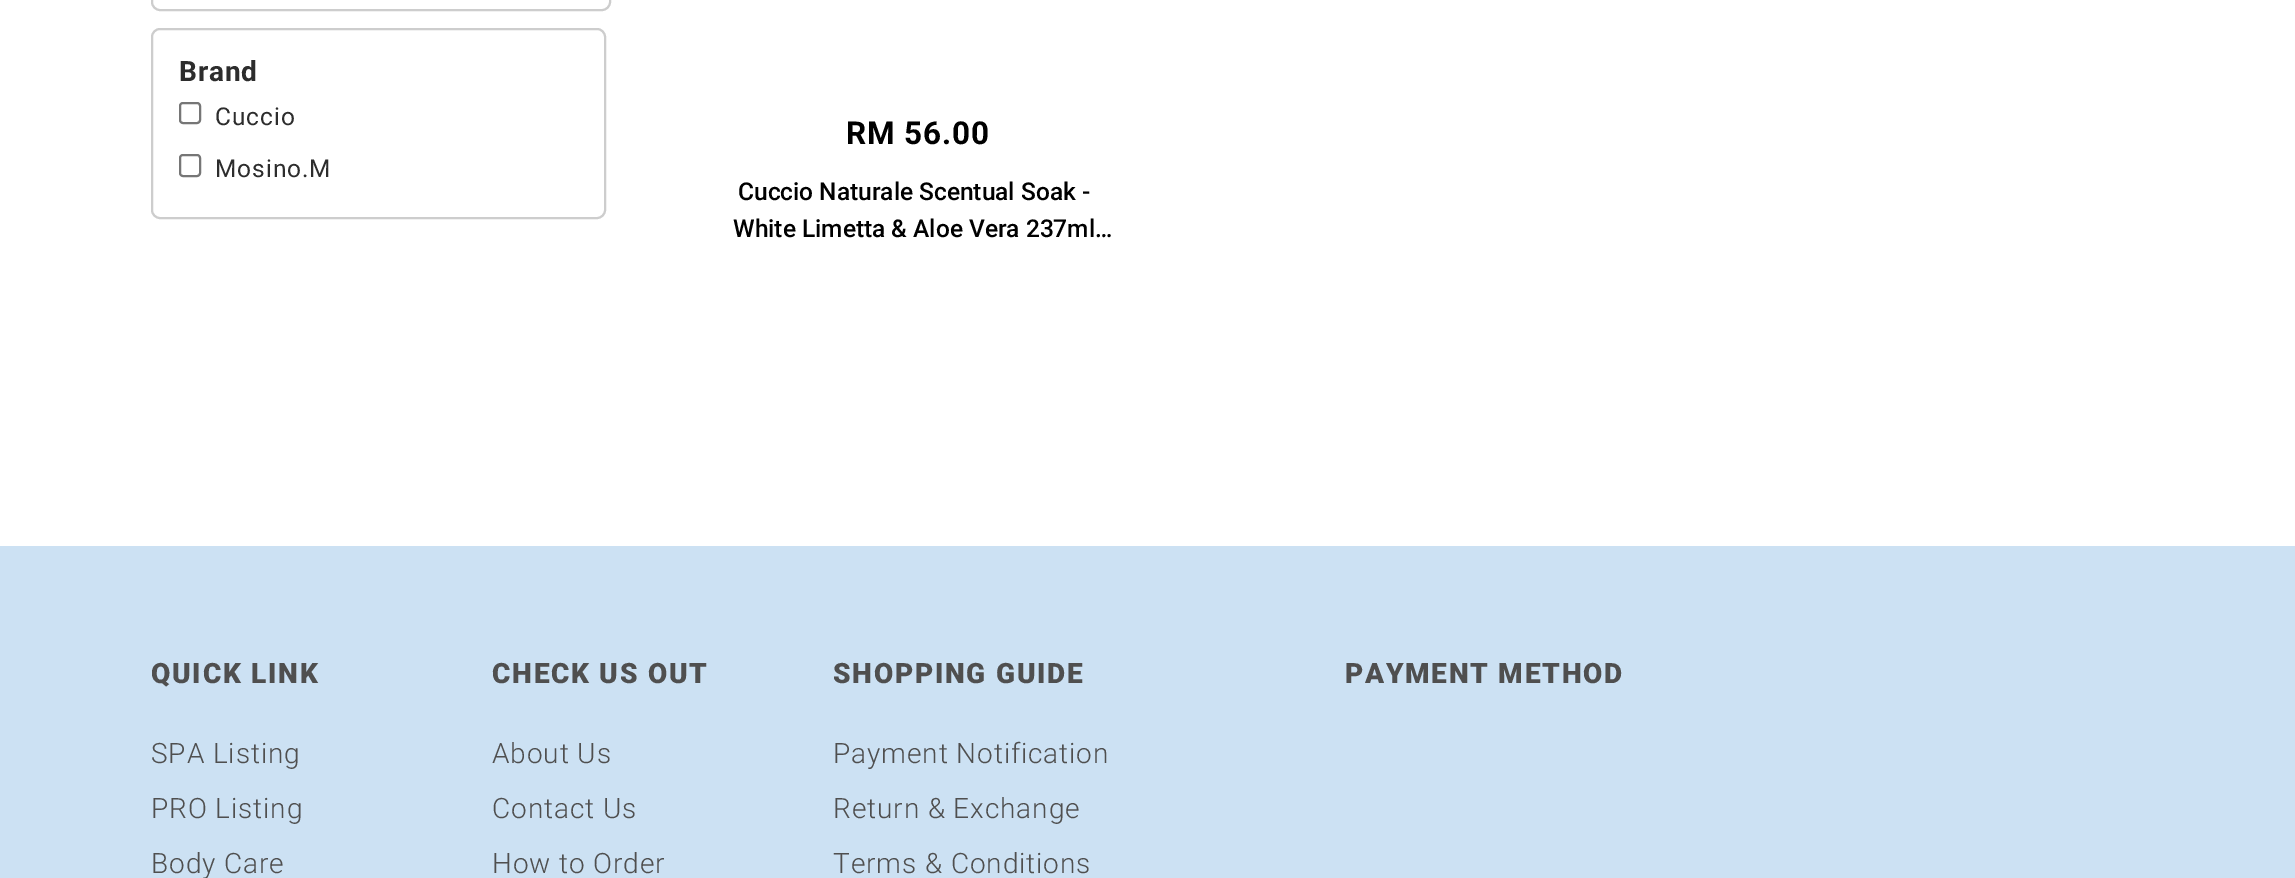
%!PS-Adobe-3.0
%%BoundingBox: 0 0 2295 878
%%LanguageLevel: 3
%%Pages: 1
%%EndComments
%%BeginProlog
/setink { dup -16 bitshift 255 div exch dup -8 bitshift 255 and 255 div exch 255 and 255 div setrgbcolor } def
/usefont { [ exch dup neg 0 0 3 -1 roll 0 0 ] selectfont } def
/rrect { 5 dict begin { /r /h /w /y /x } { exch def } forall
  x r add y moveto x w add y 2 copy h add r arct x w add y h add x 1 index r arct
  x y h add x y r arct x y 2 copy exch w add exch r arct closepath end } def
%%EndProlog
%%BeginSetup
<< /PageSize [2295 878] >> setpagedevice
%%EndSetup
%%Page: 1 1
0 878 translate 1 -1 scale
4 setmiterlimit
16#FFFFFF setink
0 0 2295 878 rectfill
16#CDCDCD setink
2 setlinewidth
152 -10 458 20 8 rrect stroke
152 29 453 189 8 rrect stroke
/Roboto-Bold 28 usefont
16#2D2D2D setink
179 81 moveto 0.9 0 (Brand) ashow
16#767676 setink
180 103 20 20 3 rrect stroke
/Roboto-Regular 24.5 usefont
16#2D2D2D setink
215 125 moveto 0.9 0 (Cuccio) ashow
16#767676 setink
180 155 20 21 3 rrect stroke
16#2D2D2D setink
215 177 moveto 0.9 0 (Mosino.M) ashow
/Roboto-Bold 31.5 usefont
16#000000 setink
846 144 moveto 0.9 0 (RM 56.00) ashow
/Roboto-Medium 24.5 usefont
738 200 moveto (Cuccio Naturale Scentual Soak -) show
733 237 moveto (White Limetta & Aloe Vera 237ml…) show
16#CCE1F3 setink
0 546 2295 332 rectfill
/Roboto-Black 28 usefont
16#4F4F4F setink
151 683 moveto 1.75 0 (QUICK LINK) ashow
/Roboto-Light 28 usefont
151 763 moveto 0.9 0 (SPA Listing) ashow
151 818 moveto 0.9 0 (PRO Listing) ashow
151 873 moveto 0.9 0 (Body Care) ashow
/Roboto-Black 28 usefont
492 683 moveto 1.75 0 (CHECK US OUT) ashow
/Roboto-Light 28 usefont
492 763 moveto 0.9 0 (About Us) ashow
492 818 moveto 0.9 0 (Contact Us) ashow
492 873 moveto 0.9 0 (How to Order) ashow
/Roboto-Black 28 usefont
833 683 moveto 1.75 0 (SHOPPING GUIDE) ashow
/Roboto-Light 28 usefont
833 763 moveto 0.9 0 (Payment Notification) ashow
833 818 moveto 0.9 0 (Return & Exchange) ashow
833 873 moveto 0.9 0 (Terms & Conditions) ashow
/Roboto-Black 28 usefont
1345 683 moveto 1.75 0 (PAYMENT METHOD) ashow
showpage
%%EOF
